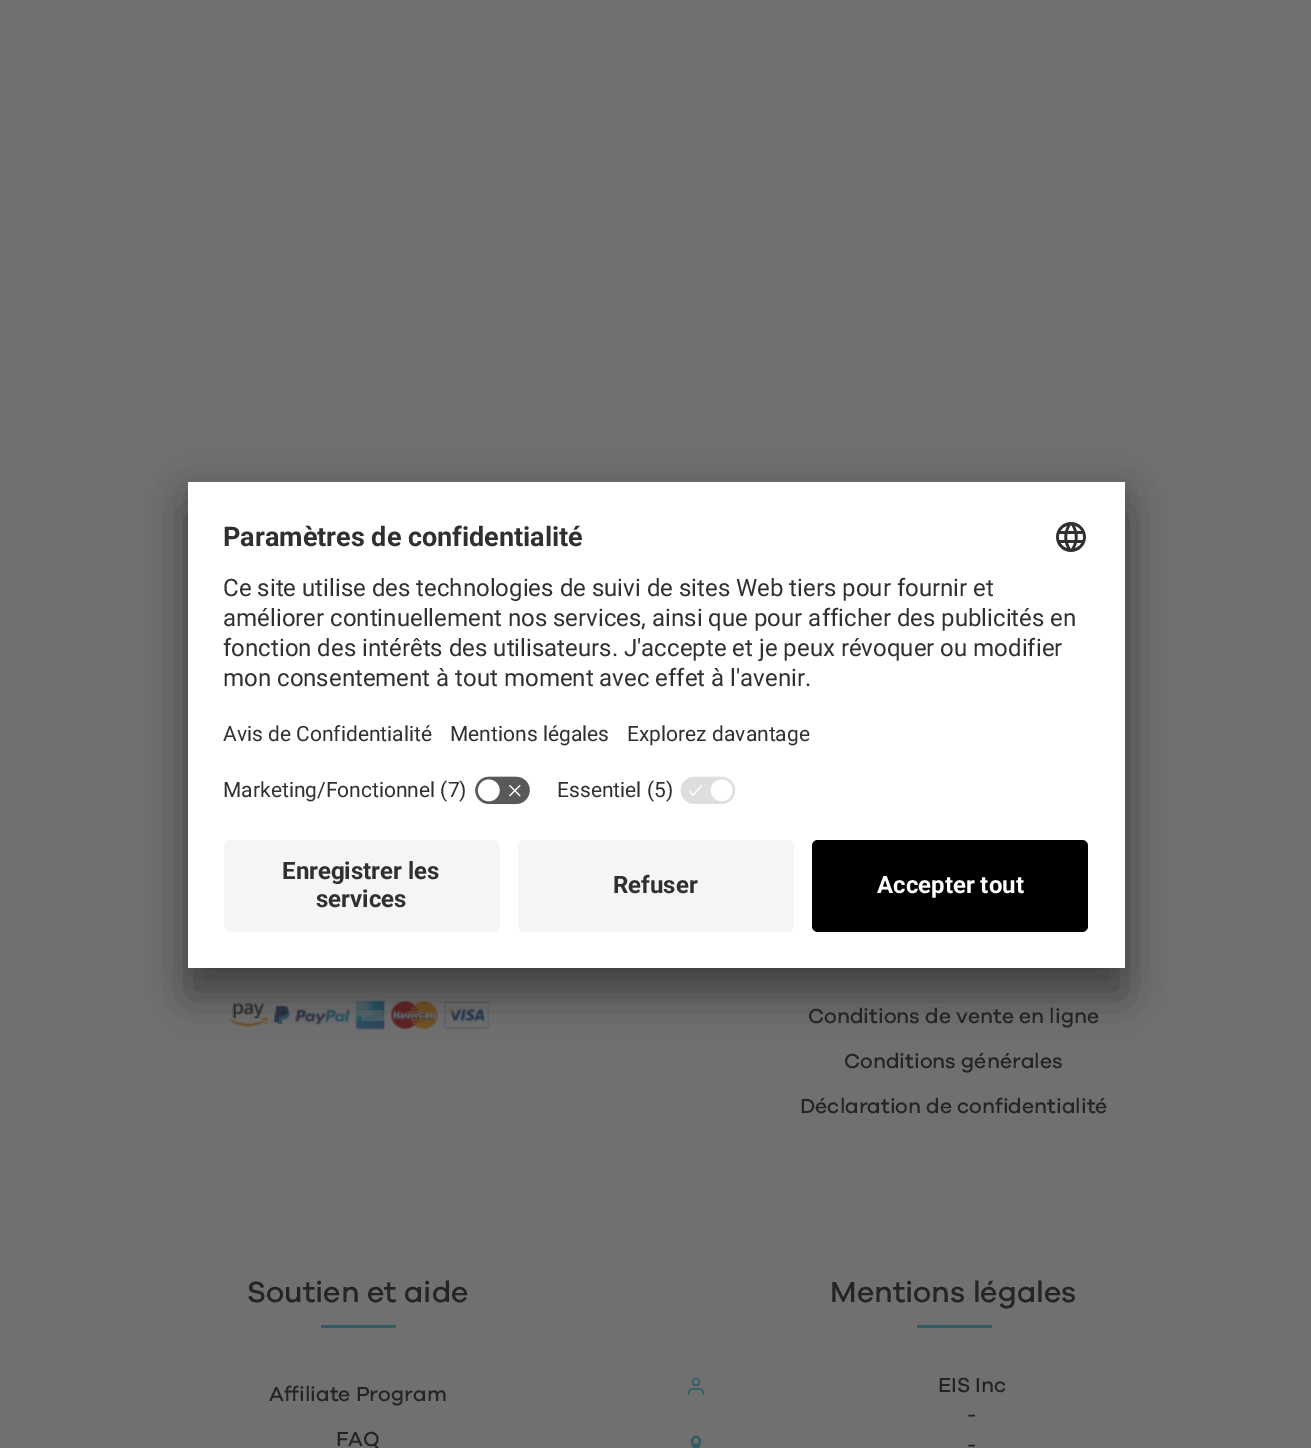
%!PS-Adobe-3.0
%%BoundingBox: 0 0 1311 1448
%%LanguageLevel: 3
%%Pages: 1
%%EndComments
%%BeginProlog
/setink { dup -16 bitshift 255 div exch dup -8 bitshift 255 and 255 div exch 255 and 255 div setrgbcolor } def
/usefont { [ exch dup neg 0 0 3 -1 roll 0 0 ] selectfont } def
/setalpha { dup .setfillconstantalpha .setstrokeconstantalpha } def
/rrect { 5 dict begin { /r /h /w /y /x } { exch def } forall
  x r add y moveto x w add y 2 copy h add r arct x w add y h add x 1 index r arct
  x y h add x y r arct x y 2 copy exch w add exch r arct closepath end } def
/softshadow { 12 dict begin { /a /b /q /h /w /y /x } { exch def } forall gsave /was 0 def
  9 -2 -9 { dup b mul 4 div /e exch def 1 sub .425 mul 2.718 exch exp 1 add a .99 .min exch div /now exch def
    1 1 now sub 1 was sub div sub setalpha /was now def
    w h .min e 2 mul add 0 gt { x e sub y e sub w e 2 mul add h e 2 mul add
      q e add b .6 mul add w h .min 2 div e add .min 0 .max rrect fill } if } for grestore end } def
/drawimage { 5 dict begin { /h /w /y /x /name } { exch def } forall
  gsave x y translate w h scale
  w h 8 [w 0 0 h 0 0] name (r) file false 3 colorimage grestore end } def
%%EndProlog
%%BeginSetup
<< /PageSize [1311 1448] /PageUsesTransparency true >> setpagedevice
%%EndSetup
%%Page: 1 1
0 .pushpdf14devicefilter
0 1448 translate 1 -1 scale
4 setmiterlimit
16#707070 setink
0 0 1311 1448 rectfill
(img4.raw) 227 999 263 32 drawimage
16#000000 setink
188 512 937 486 0 21 0.3 softshadow
188 489 937 486 0 19.5 0.22 softshadow
16#FFFFFF setink
188 482 937 486 rectfill
/Roboto-Bold 27 usefont
16#303030 setink
223 546 moveto (Paramètres de confidentialité) show
(img1.raw) 1056 522 30 30 drawimage
/Roboto-Regular 24 usefont
[
    [(Ce site utilise des technologies de suivi de sites Web tiers pour fournir et) 223 596]
    [(améliorer continuellement nos services, ainsi que pour afficher des publicités en) 223 626]
    [(fonction des intérêts des utilisateurs. J'accepte et je peux révoquer ou modifier) 223 656]
    [(mon consentement à tout moment avec effet à l'avenir.) 223 686]
] { aload pop moveto show } forall
/Roboto-Regular 21 usefont
[
    [(Avis de Confidentialité) 223 741]
    [(Mentions légales) 450 741]
    [(Explorez davantage) 627 741]
    [(Marketing/Fonctionnel \(7\)) 223 797]
] { aload pop moveto show } forall
(img2.raw) 475 776 55 29 drawimage
557 797 moveto (Essentiel \(5\)) show
(img3.raw) 680 776 56 28 drawimage
16#F5F5F5 setink
224 840 276 92 6 rrect fill
/Roboto-Bold 24 usefont
16#303030 setink
282 879 moveto (Enregistrer les) show
316 907 moveto (services) show
16#F5F5F5 setink
518 840 276 92 6 rrect fill
16#303030 setink
613 893 moveto (Refuser) show
16#000000 setink
812 840 276 92 6 rrect fill
16#FFFFFF setink
877 893 moveto (Accepter tout) show
/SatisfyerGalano-Medium 21 usefont
16#242424 setink
[
    [(Conditions de vente en ligne) 808 1023]
    [(Conditions générales) 844 1068]
    [(Déclaration de confidentialité) 800 1113]
] { aload pop moveto show } forall
/SatisfyerGalano-Medium 30 usefont
247 1302 moveto (Soutien et aide) show
16#315C62 setink
321 1325 75 3 rectfill
/SatisfyerGalano-Medium 21 usefont
16#242424 setink
269 1401 moveto (Affiliate Program) show
336 1446 moveto (FAQ) show
/SatisfyerGalano-Medium 30 usefont
830 1302 moveto (Mentions légales) show
16#315C62 setink
917 1325 75 3 rectfill
(img5.raw) 688 1377 16 18 drawimage
/SatisfyerGalano-Medium 21 usefont
16#242424 setink
938 1392 moveto (EIS Inc) show
967 1421 moveto (-) show
(img6.raw) 690 1435 12 13 drawimage
967 1451 moveto (-) show
.poppdf14devicefilter showpage
%%EOF
